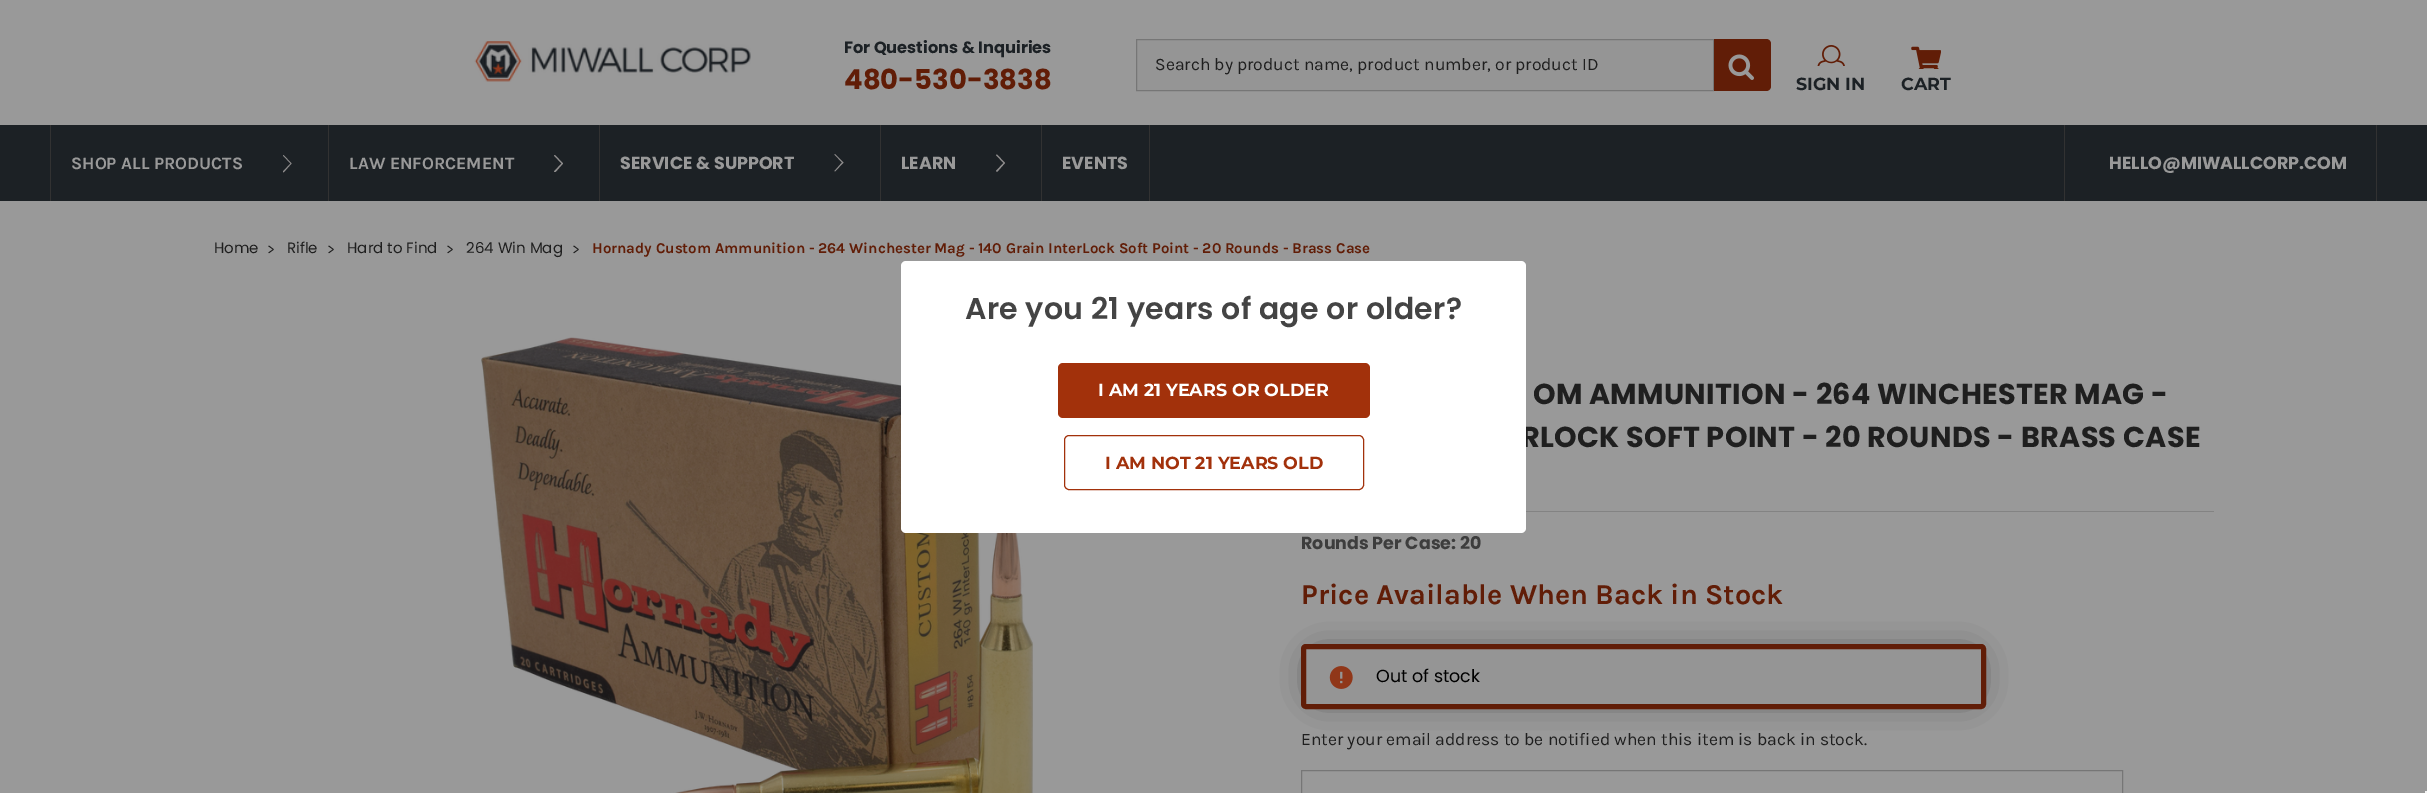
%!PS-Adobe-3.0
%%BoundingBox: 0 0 2427 793
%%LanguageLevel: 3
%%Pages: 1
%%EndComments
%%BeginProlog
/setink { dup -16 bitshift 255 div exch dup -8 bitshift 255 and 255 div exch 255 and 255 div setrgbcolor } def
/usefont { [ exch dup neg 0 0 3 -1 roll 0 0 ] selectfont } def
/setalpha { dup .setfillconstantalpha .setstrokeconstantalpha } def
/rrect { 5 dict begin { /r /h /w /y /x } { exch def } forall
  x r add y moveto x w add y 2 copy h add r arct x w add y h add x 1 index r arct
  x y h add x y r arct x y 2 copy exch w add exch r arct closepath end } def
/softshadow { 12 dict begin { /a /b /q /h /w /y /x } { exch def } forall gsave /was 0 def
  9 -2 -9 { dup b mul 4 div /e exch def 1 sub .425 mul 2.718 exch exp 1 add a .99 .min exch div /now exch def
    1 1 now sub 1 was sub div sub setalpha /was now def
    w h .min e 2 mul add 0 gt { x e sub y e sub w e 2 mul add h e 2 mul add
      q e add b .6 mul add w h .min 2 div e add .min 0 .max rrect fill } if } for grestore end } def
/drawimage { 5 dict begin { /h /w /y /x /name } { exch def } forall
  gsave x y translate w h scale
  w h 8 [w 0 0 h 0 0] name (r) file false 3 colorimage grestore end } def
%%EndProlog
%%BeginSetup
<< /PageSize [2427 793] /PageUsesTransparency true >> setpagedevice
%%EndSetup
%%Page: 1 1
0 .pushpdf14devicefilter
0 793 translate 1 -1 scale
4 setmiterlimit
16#999999 setink
0 0 2427 793 rectfill
(img1.raw) 474 41 277 41 drawimage
/Poppins-Bold 16.25 usefont
16#1C2125 setink
844 53 moveto (For Questions & Inquiries) show
/Poppins-Bold 27.5 usefont
16#611D07 setink
844 89 moveto (480-530-3838) show
16#959595 setink
1136.5 39.5 moveto 1713.5 39.5 lineto 1713.5 90.5 lineto 1136.5 90.5 lineto closepath gsave fill grestore
16#767676 setink
stroke
/Karla-Regular 17.5 usefont
16#1F1F1F setink
1155 70 moveto (Search by product name, product number, or product ID) show
16#611D07 setink
1714 39 moveto 1766 39 lineto 1769 39 1771 41 1771 44 curveto 1771 86 lineto 1771 89 1769 91 1766 91 curveto 1714 91 lineto closepath fill
(img2.raw) 1728 54 26 26 drawimage
(img3.raw) 1817 45 28 21 drawimage
/Montserrat-Bold 17.5 usefont
16#1C2125 setink
1796 90 moveto (SIGN IN) show
(img4.raw) 1911 46 30 23 drawimage
1901 90 moveto (CART) show
[
    [0 125 2427 76 16#1C2125]
    [328 125 1 76 16#323232]
    [50 125 1 76 16#323232]
] { aload pop setink rectfill } forall
/Karla-Bold 17.5 usefont
16#999999 setink
71 169 moveto (SHOP ALL PRODUCTS) show
16#908E8E setink
290.5 163.5 moveto 283 155.5 lineto 283.5 155 lineto 291.5 163.5 lineto 283.5 172.5 lineto 283 171.5 lineto closepath eofill
16#323232 setink
599 125 1 76 rectfill
16#999999 setink
349 169 moveto (LAW ENFORCEMENT) show
16#908E8E setink
561.5 163.5 moveto 554 171.5 lineto 554.5 172 lineto 555.5 172 lineto 563 163.5 lineto 555 155 lineto 554 155.5 lineto closepath fill
16#323232 setink
880 125 1 76 rectfill
/Poppins-Bold 17.5 usefont
16#999999 setink
620 169 moveto (SERVICE & SUPPORT) show
16#908E8E setink
842 162.5 moveto 834.5 154.5 lineto 835 154 lineto 843.5 162.5 lineto 835 171.5 lineto 834.5 171 lineto closepath eofill
16#323232 setink
1041 125 1 76 rectfill
16#999999 setink
901 169 moveto (LEARN) show
16#908E8E setink
1003.5 163 moveto 996 155 lineto 997 154.5 lineto 1005 163 lineto 997 172 lineto 996 171 lineto closepath eofill
16#323232 setink
1149 125 1 76 rectfill
16#999999 setink
1062 169 moveto (EVENTS) show
16#323232 setink
2376 125 1 76 rectfill
2064 125 1 76 rectfill
16#999999 setink
2109 169 moveto (HELLO@MIWALLCORP.COM) show
/Poppins-Regular 15 usefont
16#1F1F1F setink
214 253 moveto (Home) show
/Karla-Regular 15 usefont
267 254 moveto (>) show
/Poppins-Regular 15 usefont
287 253 moveto (Rifle) show
/Karla-Regular 15 usefont
327 254 moveto (>) show
/Poppins-Regular 15 usefont
347 253 moveto (Hard to Find) show
/Karla-Regular 15 usefont
446 254 moveto (>) show
/Poppins-Regular 15 usefont
466 253 moveto (264 Win Mag) show
/Karla-Regular 15 usefont
572 254 moveto (>) show
/Karla-Bold 15 usefont
16#611D07 setink
592 253 moveto (Hornady Custom Ammunition - 264 Winchester Mag - 140 Grain InterLock Soft Point - 20 Rounds - Brass Case) show
(img5.raw) 481 337 552 456 drawimage
/Poppins-Bold 28.75 usefont
16#1F1F1F setink
1533 404 moveto 0.3 0 (OM AMMUNITION - 264 WINCHESTER MAG -) ashow
1521 447 moveto 0.3 0 (RLOCK SOFT POINT - 20 ROUNDS - BRASS CASE) ashow
16#838383 setink
1526 511 688 1 rectfill
/Poppins-Bold 17.5 usefont
16#3D3D3D setink
1301 549 moveto (Rounds Per Case: 20) show
/Karla-Bold 28.75 usefont
16#611D07 setink
1301 604 moveto (Price Available When Back in Stock) show
16#1F1F1F setink
1319 661 650 30 0 17.5 1 softshadow
16#959595 setink
1303.5 646.5 680 60 2.5 rrect gsave fill grestore
16#611D07 setink
5 setlinewidth
stroke
(img6.raw) 1329 666 24 23 drawimage
/Poppins-Regular 17.5 usefont
16#000000 setink
1376 682 moveto (Out of stock) show
/Karla-Regular 17.5 usefont
16#1F1F1F setink
1301 745 moveto (Enter your email address to be notified when this item is back in stock.) show
16#767676 setink
1 setlinewidth
1301.5 770.5 821 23 rectstroke
16#FFFFFF setink
901 261 625 272 5 rrect fill
/Poppins-SemiBold 30 usefont
16#444444 setink
965 319 moveto 0.3 0 (Are you 21 years of age or older?) ashow
16#A2310B setink
1058 363 312 55 5 rrect fill
/Montserrat-Bold 17.5 usefont
16#FFFFFF setink
1098 396 moveto (I AM 21 YEARS OR OLDER) show
16#A2310B setink
1064.5 435.5 299 54 4.5 rrect stroke
1105 469 moveto (I AM NOT 21 YEARS OLD) show
16#F5F5F5 setink
2425 791 2 2 rectfill
.poppdf14devicefilter showpage
%%EOF
